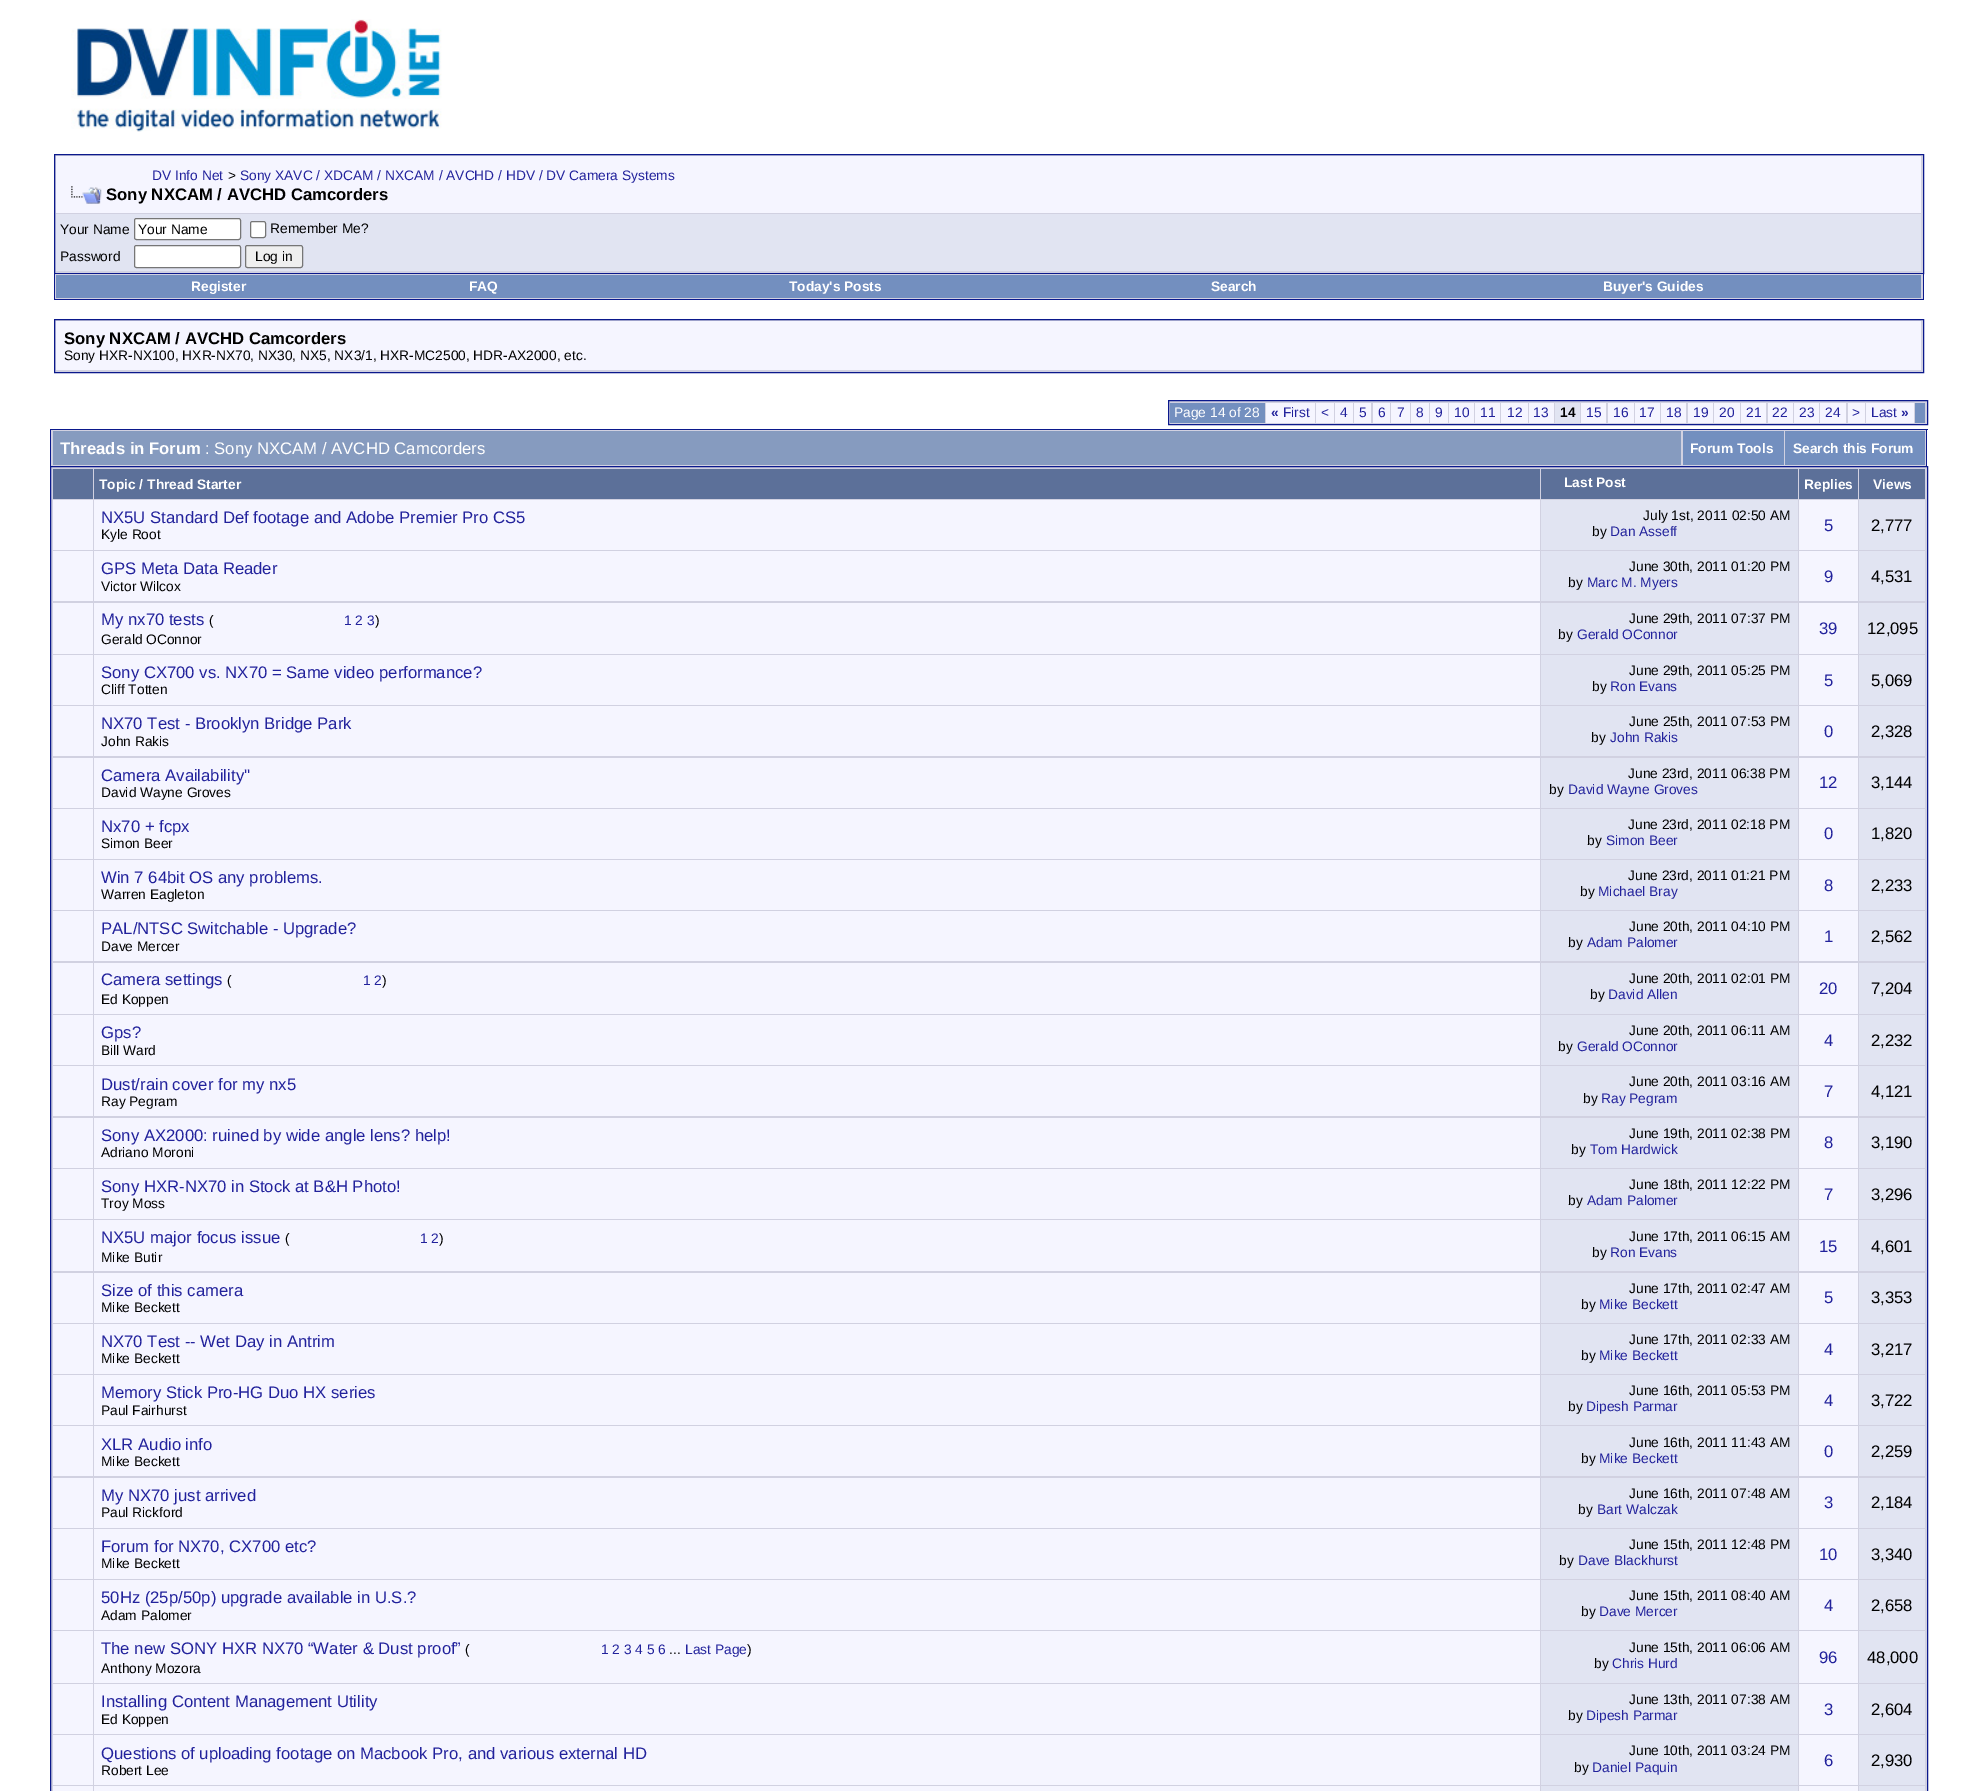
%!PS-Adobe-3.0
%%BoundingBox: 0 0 1977 1791
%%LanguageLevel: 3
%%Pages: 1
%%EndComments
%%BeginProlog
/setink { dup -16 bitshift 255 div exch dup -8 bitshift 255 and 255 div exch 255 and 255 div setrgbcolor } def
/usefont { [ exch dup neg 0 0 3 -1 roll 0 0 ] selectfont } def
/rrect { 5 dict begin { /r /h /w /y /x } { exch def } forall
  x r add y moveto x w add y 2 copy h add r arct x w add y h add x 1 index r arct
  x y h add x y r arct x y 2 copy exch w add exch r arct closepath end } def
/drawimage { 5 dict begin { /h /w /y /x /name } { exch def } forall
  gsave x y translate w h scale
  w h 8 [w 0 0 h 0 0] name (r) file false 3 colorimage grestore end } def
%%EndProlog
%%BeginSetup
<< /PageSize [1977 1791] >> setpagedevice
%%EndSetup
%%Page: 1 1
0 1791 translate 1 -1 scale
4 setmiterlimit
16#FFFFFF setink
0 0 1977 1791 rectfill
(img1.raw) 71 19 371 113 drawimage
16#D1D1E1 setink
54.5 154.5 moveto 1923.5 154.5 lineto 1923.5 273.5 lineto 54.5 273.5 lineto closepath gsave fill grestore
16#0B198C setink
stroke
16#F5F5FF setink
56 156 1865 57 rectfill
/LiberationSans-Regular 13.75 usefont
16#22229C setink
152 180 moveto (DV Info Net) show
16#000000 setink
228 180 moveto (>) show
16#22229C setink
240 180 moveto (Sony XAVC / XDCAM / NXCAM / AVCHD / HDV / DV Camera Systems) show
(img2.raw) 71 186 31 18 drawimage
/LiberationSans-Bold 16.7 usefont
16#000000 setink
106 200 moveto (Sony NXCAM / AVCHD Camcorders) show
16#E1E4F2 setink
56 214 1865 57 rectfill
/LiberationSans-Regular 13.75 usefont
16#000000 setink
60 234 moveto (Your Name) show
16#FFFFFF setink
134.5 218.5 106 21 2 rrect gsave fill grestore
16#767676 setink
stroke
16#000000 setink
138 234 moveto (Your Name) show
16#FFFFFF setink
250.5 221.5 15 16 2 rrect gsave fill grestore
16#767676 setink
stroke
16#000000 setink
270 233 moveto (Remember Me?) show
60 261 moveto (Password) show
16#FFFFFF setink
134.5 245.5 106 22 2 rrect gsave fill grestore
16#767676 setink
stroke
16#EFEFEF setink
245.5 245.5 57 22 2 rrect gsave fill grestore
16#767676 setink
stroke
16#000000 setink
255 261 moveto (Log in) show
[
    [55 274 1868 25 16#D1D1E1]
    [1923 274 1 26 16#0B198C]
    [54 299 1870 1 16#0B198C]
    [54 274 1 26 16#0B198C]
    [56 275 1865 23 16#738FBF]
] { aload pop setink rectfill } forall
/LiberationSans-Bold 13.75 usefont
16#FFFFFF setink
[
    [(Register) 191 291]
    [(FAQ) 469 291]
    [(Today's Posts) 789 291]
    [(Search) 1211 291]
    [(Buyer's Guides) 1603 291]
] { aload pop moveto show } forall
16#D1D1E1 setink
54.5 319.5 moveto 1923.5 319.5 lineto 1923.5 372.5 lineto 54.5 372.5 lineto closepath gsave fill grestore
16#0B198C setink
stroke
16#F5F5FF setink
56 321 1865 49 rectfill
/LiberationSans-Bold 16.7 usefont
16#000000 setink
64 344 moveto (Sony NXCAM / AVCHD Camcorders) show
/LiberationSans-Regular 13.75 usefont
64 360 moveto (Sony HXR-NX100, HXR-NX70, NX30, NX5, NX3/1, HXR-MC2500, HDR-AX2000, etc.) show
16#D1D1E1 setink
1168.5 400.5 moveto 1927.5 400.5 lineto 1927.5 424.5 lineto 1168.5 424.5 lineto closepath gsave fill grestore
16#0B198C setink
stroke
16#738FBF setink
1170 403 95 20 rectfill
16#FFFFFF setink
1174 417 moveto (Page 14 of 28) show
16#F5F5FF setink
1266 403 49 20 rectfill
/LiberationSans-Bold 13.75 usefont
16#22229C setink
1271 417 moveto («) show
/LiberationSans-Regular 13.75 usefont
1283 417 moveto (First) show
16#F5F5FF setink
1316 403 18 20 rectfill
16#22229C setink
1321 417 moveto (<) show
16#F5F5FF setink
1335 403 18 20 rectfill
16#22229C setink
1340 417 moveto (4) show
16#F5F5FF setink
1354 403 17 20 rectfill
16#22229C setink
1359 417 moveto (5) show
16#F5F5FF setink
1373 403 17 20 rectfill
16#22229C setink
1378 417 moveto (6) show
16#F5F5FF setink
1391 403 19 20 rectfill
16#22229C setink
1397 417 moveto (7) show
16#F5F5FF setink
1411 403 18 20 rectfill
16#22229C setink
1416 417 moveto (8) show
16#F5F5FF setink
1430 403 18 20 rectfill
16#22229C setink
1435 417 moveto (9) show
16#F5F5FF setink
1449 403 25 20 rectfill
16#22229C setink
1454 417 moveto (10) show
16#F5F5FF setink
1475 403 25 20 rectfill
16#22229C setink
1480 417 moveto (11) show
16#F5F5FF setink
1501 403 27 20 rectfill
16#22229C setink
1507 417 moveto (12) show
16#F5F5FF setink
1529 403 25 20 rectfill
16#22229C setink
1533 417 moveto (13) show
16#E1E4F2 setink
1555 403 25 20 rectfill
/LiberationSans-Bold 13.75 usefont
16#000000 setink
1560 417 moveto (14) show
16#F5F5FF setink
1581 403 25 20 rectfill
/LiberationSans-Regular 13.75 usefont
16#22229C setink
1586 417 moveto (15) show
16#F5F5FF setink
1608 403 26 20 rectfill
16#22229C setink
1613 417 moveto (16) show
16#F5F5FF setink
1635 403 25 20 rectfill
16#22229C setink
1639 417 moveto (17) show
16#F5F5FF setink
1661 403 25 20 rectfill
16#22229C setink
1666 417 moveto (18) show
16#F5F5FF setink
1688 403 25 20 rectfill
16#22229C setink
1693 417 moveto (19) show
16#F5F5FF setink
1714 403 26 20 rectfill
16#22229C setink
1719 417 moveto (20) show
16#F5F5FF setink
1741 403 25 20 rectfill
16#22229C setink
1746 417 moveto (21) show
16#F5F5FF setink
1768 403 25 20 rectfill
16#22229C setink
1772 417 moveto (22) show
16#F5F5FF setink
1794 403 25 20 rectfill
16#22229C setink
1799 417 moveto (23) show
16#F5F5FF setink
1820 403 26 20 rectfill
16#22229C setink
1825 417 moveto (24) show
16#F5F5FF setink
1848 403 17 20 rectfill
16#22229C setink
1852 417 moveto (>) show
16#F5F5FF setink
1866 403 48 20 rectfill
16#22229C setink
1871 417 moveto (Last) show
/LiberationSans-Bold 13.75 usefont
1901 417 moveto (») show
[
    [1915 403 10 20 16#738FBF]
    [51 430 1875 36 16#D1D1E1]
    [50 429 1878 1 16#0B198C]
    [1926 429 1 37 16#0B198C]
    [50 429 1 37 16#0B198C]
    [53 431 1628 34 16#869BBF]
] { aload pop setink rectfill } forall
/LiberationSans-Bold 16.7 usefont
16#FFFFFF setink
60 454 moveto (Threads in Forum) show
/LiberationSans-Regular 16.7 usefont
205 454 moveto (: Sony NXCAM / AVCHD Camcorders) show
16#738FBF setink
1683 431 101 34 rectfill
/LiberationSans-Bold 13.75 usefont
16#FFFFFF setink
1690 453 moveto (Forum Tools) show
16#738FBF setink
1785 431 140 34 rectfill
16#FFFFFF setink
1793 453 moveto (Search this Forum) show
16#D1D1E1 setink
50.5 466.5 moveto 1927.5 466.5 lineto 1927.5 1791.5 lineto 50.5 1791.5 lineto closepath gsave fill grestore
16#0B198C setink
stroke
16#5C7099 setink
53 469 40 30 rectfill
94 469 1446 30 rectfill
16#FFFFFF setink
99 489 moveto (Topic / Thread Starter) show
16#5C7099 setink
1541 469 257 30 rectfill
16#FFFFFF setink
1564 487 moveto (Last Post) show
16#5C7099 setink
1799 469 59 30 rectfill
16#FFFFFF setink
1804 489 moveto (Replies) show
16#5C7099 setink
1859 469 66 30 rectfill
16#FFFFFF setink
1873 489 moveto (Views) show
16#F5F5FF setink
53 500 40 50 rectfill
94 500 1446 50 rectfill
/LiberationSans-Regular 16.7 usefont
16#22229C setink
101 523 moveto (NX5U Standard Def footage and Adobe Premier Pro CS5) show
/LiberationSans-Regular 13.75 usefont
16#000000 setink
101 539 moveto (Kyle Root) show
16#E1E4F2 setink
1541 500 257 50 rectfill
16#000000 setink
1643 520 moveto (July 1st, 2011 02:50 AM) show
1592 536 moveto (by) show
16#22229C setink
1610 536 moveto (Dan Asseff) show
16#F5F5FF setink
1799 500 59 50 rectfill
/LiberationSans-Regular 16.7 usefont
16#22229C setink
1824 531 moveto (5) show
16#E1E4F2 setink
1859 500 66 50 rectfill
16#000000 setink
1871 531 moveto (2,777) show
16#F5F5FF setink
53 551 40 50 rectfill
94 551 1446 50 rectfill
16#22229C setink
101 574 moveto (GPS Meta Data Reader) show
/LiberationSans-Regular 13.75 usefont
16#000000 setink
101 591 moveto (Victor Wilcox) show
16#E1E4F2 setink
1541 551 257 50 rectfill
16#000000 setink
1629 571 moveto (June 30th, 2011 01:20 PM) show
1568 587 moveto (by) show
16#22229C setink
1587 587 moveto (Marc M. Myers) show
16#F5F5FF setink
1799 551 59 50 rectfill
/LiberationSans-Regular 16.7 usefont
16#22229C setink
1824 582 moveto (9) show
16#E1E4F2 setink
1859 551 66 50 rectfill
16#000000 setink
1871 582 moveto (4,531) show
16#F5F5FF setink
53 603 40 51 rectfill
94 603 1446 51 rectfill
16#22229C setink
101 625 moveto (My nx70 tests) show
/LiberationSans-Regular 13.75 usefont
16#000000 setink
209 625 moveto (\() show
16#22229C setink
344 625 moveto (1 2 3) show
16#000000 setink
375 625 moveto (\)) show
101 644 moveto (Gerald OConnor) show
16#E1E4F2 setink
1541 603 257 51 rectfill
16#000000 setink
1629 623 moveto (June 29th, 2011 07:37 PM) show
1558 639 moveto (by) show
16#22229C setink
1577 639 moveto (Gerald OConnor) show
16#F5F5FF setink
1799 603 59 51 rectfill
/LiberationSans-Regular 16.7 usefont
16#22229C setink
1819 634 moveto (39) show
16#E1E4F2 setink
1859 603 66 51 rectfill
16#000000 setink
1867 634 moveto (12,095) show
16#F5F5FF setink
53 655 40 50 rectfill
94 655 1446 50 rectfill
16#22229C setink
101 678 moveto (Sony CX700 vs. NX70 = Same video performance?) show
/LiberationSans-Regular 13.75 usefont
16#000000 setink
101 694 moveto (Cliff Totten) show
16#E1E4F2 setink
1541 655 257 50 rectfill
16#000000 setink
1629 675 moveto (June 29th, 2011 05:25 PM) show
1592 691 moveto (by) show
16#22229C setink
1610 691 moveto (Ron Evans) show
16#F5F5FF setink
1799 655 59 50 rectfill
/LiberationSans-Regular 16.7 usefont
16#22229C setink
1824 686 moveto (5) show
16#E1E4F2 setink
1859 655 66 50 rectfill
16#000000 setink
1871 686 moveto (5,069) show
16#F5F5FF setink
53 706 40 50 rectfill
94 706 1446 50 rectfill
16#22229C setink
101 729 moveto (NX70 Test - Brooklyn Bridge Park) show
/LiberationSans-Regular 13.75 usefont
16#000000 setink
101 746 moveto (John Rakis) show
16#E1E4F2 setink
1541 706 257 50 rectfill
16#000000 setink
1629 726 moveto (June 25th, 2011 07:53 PM) show
1591 742 moveto (by) show
16#22229C setink
1610 742 moveto (John Rakis) show
16#F5F5FF setink
1799 706 59 50 rectfill
/LiberationSans-Regular 16.7 usefont
16#22229C setink
1824 737 moveto (0) show
16#E1E4F2 setink
1859 706 66 50 rectfill
16#000000 setink
1871 737 moveto (2,328) show
16#F5F5FF setink
53 758 40 50 rectfill
94 758 1446 50 rectfill
16#22229C setink
101 781 moveto (Camera Availability'') show
/LiberationSans-Regular 13.75 usefont
16#000000 setink
101 797 moveto (David Wayne Groves) show
16#E1E4F2 setink
1541 758 257 50 rectfill
16#000000 setink
1628 778 moveto (June 23rd, 2011 06:38 PM) show
1549 794 moveto (by) show
16#22229C setink
1568 794 moveto (David Wayne Groves) show
16#F5F5FF setink
1799 758 59 50 rectfill
/LiberationSans-Regular 16.7 usefont
16#22229C setink
1819 788 moveto (12) show
16#E1E4F2 setink
1859 758 66 50 rectfill
16#000000 setink
1871 788 moveto (3,144) show
16#F5F5FF setink
53 809 40 50 rectfill
94 809 1446 50 rectfill
16#22229C setink
101 832 moveto (Nx70 + fcpx) show
/LiberationSans-Regular 13.75 usefont
16#000000 setink
101 848 moveto (Simon Beer) show
16#E1E4F2 setink
1541 809 257 50 rectfill
16#000000 setink
1628 829 moveto (June 23rd, 2011 02:18 PM) show
1587 845 moveto (by) show
16#22229C setink
1606 845 moveto (Simon Beer) show
16#F5F5FF setink
1799 809 59 50 rectfill
/LiberationSans-Regular 16.7 usefont
16#22229C setink
1824 839 moveto (0) show
16#E1E4F2 setink
1859 809 66 50 rectfill
16#000000 setink
1871 839 moveto (1,820) show
16#F5F5FF setink
53 860 40 50 rectfill
94 860 1446 50 rectfill
16#22229C setink
101 883 moveto (Win 7 64bit OS any problems.) show
/LiberationSans-Regular 13.75 usefont
16#000000 setink
101 899 moveto (Warren Eagleton) show
16#E1E4F2 setink
1541 860 257 50 rectfill
16#000000 setink
1628 880 moveto (June 23rd, 2011 01:21 PM) show
1580 896 moveto (by) show
16#22229C setink
1598 896 moveto (Michael Bray) show
16#F5F5FF setink
1799 860 59 50 rectfill
/LiberationSans-Regular 16.7 usefont
16#22229C setink
1824 891 moveto (8) show
16#E1E4F2 setink
1859 860 66 50 rectfill
16#000000 setink
1871 891 moveto (2,233) show
16#F5F5FF setink
53 911 40 50 rectfill
94 911 1446 50 rectfill
16#22229C setink
101 934 moveto (PAL/NTSC Switchable - Upgrade?) show
/LiberationSans-Regular 13.75 usefont
16#000000 setink
101 951 moveto (Dave Mercer) show
16#E1E4F2 setink
1541 911 257 50 rectfill
16#000000 setink
1629 931 moveto (June 20th, 2011 04:10 PM) show
1568 947 moveto (by) show
16#22229C setink
1587 947 moveto (Adam Palomer) show
16#F5F5FF setink
1799 911 59 50 rectfill
/LiberationSans-Regular 16.7 usefont
16#22229C setink
1824 942 moveto (1) show
16#E1E4F2 setink
1859 911 66 50 rectfill
16#000000 setink
1871 942 moveto (2,562) show
16#F5F5FF setink
53 963 40 51 rectfill
94 963 1446 51 rectfill
16#22229C setink
101 985 moveto (Camera settings) show
/LiberationSans-Regular 13.75 usefont
16#000000 setink
227 985 moveto (\() show
16#22229C setink
363 985 moveto (1 2) show
16#000000 setink
382 985 moveto (\)) show
101 1004 moveto (Ed Koppen) show
16#E1E4F2 setink
1541 963 257 51 rectfill
16#000000 setink
1629 983 moveto (June 20th, 2011 02:01 PM) show
1590 999 moveto (by) show
16#22229C setink
1608 999 moveto (David Allen) show
16#F5F5FF setink
1799 963 59 51 rectfill
/LiberationSans-Regular 16.7 usefont
16#22229C setink
1819 994 moveto (20) show
16#E1E4F2 setink
1859 963 66 51 rectfill
16#000000 setink
1871 994 moveto (7,204) show
16#F5F5FF setink
53 1015 40 50 rectfill
94 1015 1446 50 rectfill
16#22229C setink
101 1038 moveto (Gps?) show
/LiberationSans-Regular 13.75 usefont
16#000000 setink
101 1055 moveto (Bill Ward) show
16#E1E4F2 setink
1541 1015 257 50 rectfill
16#000000 setink
1629 1035 moveto (June 20th, 2011 06:11 AM) show
1558 1051 moveto (by) show
16#22229C setink
1577 1051 moveto (Gerald OConnor) show
16#F5F5FF setink
1799 1015 59 50 rectfill
/LiberationSans-Regular 16.7 usefont
16#22229C setink
1824 1046 moveto (4) show
16#E1E4F2 setink
1859 1015 66 50 rectfill
16#000000 setink
1871 1046 moveto (2,232) show
16#F5F5FF setink
53 1066 40 50 rectfill
94 1066 1446 50 rectfill
16#22229C setink
101 1090 moveto (Dust/rain cover for my nx5) show
/LiberationSans-Regular 13.75 usefont
16#000000 setink
101 1106 moveto (Ray Pegram) show
16#E1E4F2 setink
1541 1066 257 50 rectfill
16#000000 setink
1629 1086 moveto (June 20th, 2011 03:16 AM) show
1583 1103 moveto (by) show
16#22229C setink
1601 1103 moveto (Ray Pegram) show
16#F5F5FF setink
1799 1066 59 50 rectfill
/LiberationSans-Regular 16.7 usefont
16#22229C setink
1824 1097 moveto (7) show
16#E1E4F2 setink
1859 1066 66 50 rectfill
16#000000 setink
1871 1097 moveto (4,121) show
16#F5F5FF setink
53 1118 40 50 rectfill
94 1118 1446 50 rectfill
16#22229C setink
101 1141 moveto (Sony AX2000: ruined by wide angle lens? help!) show
/LiberationSans-Regular 13.75 usefont
16#000000 setink
101 1157 moveto (Adriano Moroni) show
16#E1E4F2 setink
1541 1118 257 50 rectfill
16#000000 setink
1629 1138 moveto (June 19th, 2011 02:38 PM) show
1571 1154 moveto (by) show
16#22229C setink
1590 1154 moveto (Tom Hardwick) show
16#F5F5FF setink
1799 1118 59 50 rectfill
/LiberationSans-Regular 16.7 usefont
16#22229C setink
1824 1148 moveto (8) show
16#E1E4F2 setink
1859 1118 66 50 rectfill
16#000000 setink
1871 1148 moveto (3,190) show
16#F5F5FF setink
53 1169 40 50 rectfill
94 1169 1446 50 rectfill
16#22229C setink
101 1192 moveto (Sony HXR-NX70 in Stock at B&H Photo!) show
/LiberationSans-Regular 13.75 usefont
16#000000 setink
101 1208 moveto (Troy Moss) show
16#E1E4F2 setink
1541 1169 257 50 rectfill
16#000000 setink
1629 1189 moveto (June 18th, 2011 12:22 PM) show
1568 1205 moveto (by) show
16#22229C setink
1587 1205 moveto (Adam Palomer) show
16#F5F5FF setink
1799 1169 59 50 rectfill
/LiberationSans-Regular 16.7 usefont
16#22229C setink
1824 1200 moveto (7) show
16#E1E4F2 setink
1859 1169 66 50 rectfill
16#000000 setink
1871 1200 moveto (3,296) show
16#F5F5FF setink
53 1220 40 51 rectfill
94 1220 1446 51 rectfill
16#22229C setink
101 1243 moveto (NX5U major focus issue) show
/LiberationSans-Regular 13.75 usefont
16#000000 setink
285 1243 moveto (\() show
16#22229C setink
420 1243 moveto (1 2) show
16#000000 setink
439 1243 moveto (\)) show
101 1262 moveto (Mike Butir) show
16#E1E4F2 setink
1541 1220 257 51 rectfill
16#000000 setink
1629 1241 moveto (June 17th, 2011 06:15 AM) show
1592 1257 moveto (by) show
16#22229C setink
1610 1257 moveto (Ron Evans) show
16#F5F5FF setink
1799 1220 59 51 rectfill
/LiberationSans-Regular 16.7 usefont
16#22229C setink
1819 1252 moveto (15) show
16#E1E4F2 setink
1859 1220 66 51 rectfill
16#000000 setink
1871 1252 moveto (4,601) show
16#F5F5FF setink
53 1273 40 50 rectfill
94 1273 1446 50 rectfill
16#22229C setink
101 1296 moveto (Size of this camera) show
/LiberationSans-Regular 13.75 usefont
16#000000 setink
101 1312 moveto (Mike Beckett) show
16#E1E4F2 setink
1541 1273 257 50 rectfill
16#000000 setink
1629 1293 moveto (June 17th, 2011 02:47 AM) show
1581 1309 moveto (by) show
16#22229C setink
1599 1309 moveto (Mike Beckett) show
16#F5F5FF setink
1799 1273 59 50 rectfill
/LiberationSans-Regular 16.7 usefont
16#22229C setink
1824 1303 moveto (5) show
16#E1E4F2 setink
1859 1273 66 50 rectfill
16#000000 setink
1871 1303 moveto (3,353) show
16#F5F5FF setink
53 1324 40 50 rectfill
94 1324 1446 50 rectfill
16#22229C setink
101 1347 moveto (NX70 Test -- Wet Day in Antrim) show
/LiberationSans-Regular 13.75 usefont
16#000000 setink
101 1363 moveto (Mike Beckett) show
16#E1E4F2 setink
1541 1324 257 50 rectfill
16#000000 setink
1629 1344 moveto (June 17th, 2011 02:33 AM) show
1581 1360 moveto (by) show
16#22229C setink
1599 1360 moveto (Mike Beckett) show
16#F5F5FF setink
1799 1324 59 50 rectfill
/LiberationSans-Regular 16.7 usefont
16#22229C setink
1824 1355 moveto (4) show
16#E1E4F2 setink
1859 1324 66 50 rectfill
16#000000 setink
1871 1355 moveto (3,217) show
16#F5F5FF setink
53 1375 40 50 rectfill
94 1375 1446 50 rectfill
16#22229C setink
101 1398 moveto (Memory Stick Pro-HG Duo HX series) show
/LiberationSans-Regular 13.75 usefont
16#000000 setink
101 1415 moveto (Paul Fairhurst) show
16#E1E4F2 setink
1541 1375 257 50 rectfill
16#000000 setink
1629 1395 moveto (June 16th, 2011 05:53 PM) show
1568 1411 moveto (by) show
16#22229C setink
1586 1411 moveto (Dipesh Parmar) show
16#F5F5FF setink
1799 1375 59 50 rectfill
/LiberationSans-Regular 16.7 usefont
16#22229C setink
1824 1406 moveto (4) show
16#E1E4F2 setink
1859 1375 66 50 rectfill
16#000000 setink
1871 1406 moveto (3,722) show
16#F5F5FF setink
53 1426 40 50 rectfill
94 1426 1446 50 rectfill
16#22229C setink
101 1450 moveto (XLR Audio info) show
/LiberationSans-Regular 13.75 usefont
16#000000 setink
101 1466 moveto (Mike Beckett) show
16#E1E4F2 setink
1541 1426 257 50 rectfill
16#000000 setink
1629 1447 moveto (June 16th, 2011 11:43 AM) show
1581 1463 moveto (by) show
16#22229C setink
1599 1463 moveto (Mike Beckett) show
16#F5F5FF setink
1799 1426 59 50 rectfill
/LiberationSans-Regular 16.7 usefont
16#22229C setink
1824 1457 moveto (0) show
16#E1E4F2 setink
1859 1426 66 50 rectfill
16#000000 setink
1871 1457 moveto (2,259) show
16#F5F5FF setink
53 1478 40 50 rectfill
94 1478 1446 50 rectfill
16#22229C setink
101 1501 moveto (My NX70 just arrived) show
/LiberationSans-Regular 13.75 usefont
16#000000 setink
101 1517 moveto (Paul Rickford) show
16#E1E4F2 setink
1541 1478 257 50 rectfill
16#000000 setink
1629 1498 moveto (June 16th, 2011 07:48 AM) show
1578 1514 moveto (by) show
16#22229C setink
1597 1514 moveto (Bart Walczak) show
16#F5F5FF setink
1799 1478 59 50 rectfill
/LiberationSans-Regular 16.7 usefont
16#22229C setink
1824 1508 moveto (3) show
16#E1E4F2 setink
1859 1478 66 50 rectfill
16#000000 setink
1871 1508 moveto (2,184) show
16#F5F5FF setink
53 1529 40 50 rectfill
94 1529 1446 50 rectfill
16#22229C setink
101 1552 moveto (Forum for NX70, CX700 etc?) show
/LiberationSans-Regular 13.75 usefont
16#000000 setink
101 1568 moveto (Mike Beckett) show
16#E1E4F2 setink
1541 1529 257 50 rectfill
16#000000 setink
1629 1549 moveto (June 15th, 2011 12:48 PM) show
1559 1565 moveto (by) show
16#22229C setink
1578 1565 moveto (Dave Blackhurst) show
16#F5F5FF setink
1799 1529 59 50 rectfill
/LiberationSans-Regular 16.7 usefont
16#22229C setink
1819 1560 moveto (10) show
16#E1E4F2 setink
1859 1529 66 50 rectfill
16#000000 setink
1871 1560 moveto (3,340) show
16#F5F5FF setink
53 1580 40 50 rectfill
94 1580 1446 50 rectfill
16#22229C setink
101 1603 moveto (50Hz \(25p/50p\) upgrade available in U.S.?) show
/LiberationSans-Regular 13.75 usefont
16#000000 setink
101 1620 moveto (Adam Palomer) show
16#E1E4F2 setink
1541 1580 257 50 rectfill
16#000000 setink
1629 1600 moveto (June 15th, 2011 08:40 AM) show
1581 1616 moveto (by) show
16#22229C setink
1599 1616 moveto (Dave Mercer) show
16#F5F5FF setink
1799 1580 59 50 rectfill
/LiberationSans-Regular 16.7 usefont
16#22229C setink
1824 1611 moveto (4) show
16#E1E4F2 setink
1859 1580 66 50 rectfill
16#000000 setink
1871 1611 moveto (2,658) show
16#F5F5FF setink
53 1631 40 52 rectfill
94 1631 1446 52 rectfill
16#22229C setink
101 1654 moveto (The new SONY HXR NX70 “Water & Dust proof”) show
/LiberationSans-Regular 13.75 usefont
16#000000 setink
465 1654 moveto (\() show
16#22229C setink
601 1654 moveto (1 2 3 4 5 6) show
16#000000 setink
669 1654 moveto (...) show
16#22229C setink
685 1654 moveto (Last Page) show
16#000000 setink
747 1654 moveto (\)) show
101 1673 moveto (Anthony Mozora) show
16#E1E4F2 setink
1541 1631 257 52 rectfill
16#000000 setink
1629 1652 moveto (June 15th, 2011 06:06 AM) show
1594 1668 moveto (by) show
16#22229C setink
1612 1668 moveto (Chris Hurd) show
16#F5F5FF setink
1799 1631 59 52 rectfill
/LiberationSans-Regular 16.7 usefont
16#22229C setink
1819 1663 moveto (96) show
16#E1E4F2 setink
1859 1631 66 52 rectfill
16#000000 setink
1867 1663 moveto (48,000) show
16#F5F5FF setink
53 1684 40 50 rectfill
94 1684 1446 50 rectfill
16#22229C setink
101 1707 moveto (Installing Content Management Utility) show
/LiberationSans-Regular 13.75 usefont
16#000000 setink
101 1724 moveto (Ed Koppen) show
16#E1E4F2 setink
1541 1684 257 50 rectfill
16#000000 setink
1629 1704 moveto (June 13th, 2011 07:38 AM) show
1568 1720 moveto (by) show
16#22229C setink
1586 1720 moveto (Dipesh Parmar) show
16#F5F5FF setink
1799 1684 59 50 rectfill
/LiberationSans-Regular 16.7 usefont
16#22229C setink
1824 1715 moveto (3) show
16#E1E4F2 setink
1859 1684 66 50 rectfill
16#000000 setink
1871 1715 moveto (2,604) show
16#F5F5FF setink
53 1735 40 50 rectfill
94 1735 1446 50 rectfill
16#22229C setink
101 1759 moveto (Questions of uploading footage on Macbook Pro, and various external HD) show
/LiberationSans-Regular 13.75 usefont
16#000000 setink
101 1775 moveto (Robert Lee) show
16#E1E4F2 setink
1541 1735 257 50 rectfill
16#000000 setink
1629 1755 moveto (June 10th, 2011 03:24 PM) show
1574 1772 moveto (by) show
16#22229C setink
1592 1772 moveto (Daniel Paquin) show
16#F5F5FF setink
1799 1735 59 50 rectfill
/LiberationSans-Regular 16.7 usefont
16#22229C setink
1824 1766 moveto (6) show
16#E1E4F2 setink
1859 1735 66 50 rectfill
16#000000 setink
1871 1766 moveto (2,930) show
[
    [53 1786 40 5 16#F5F5FF]
    [94 1786 1446 5 16#F5F5FF]
    [1541 1786 257 5 16#E1E4F2]
    [1799 1786 59 5 16#F5F5FF]
    [1859 1786 66 5 16#E1E4F2]
] { aload pop setink rectfill } forall
showpage
%%EOF
